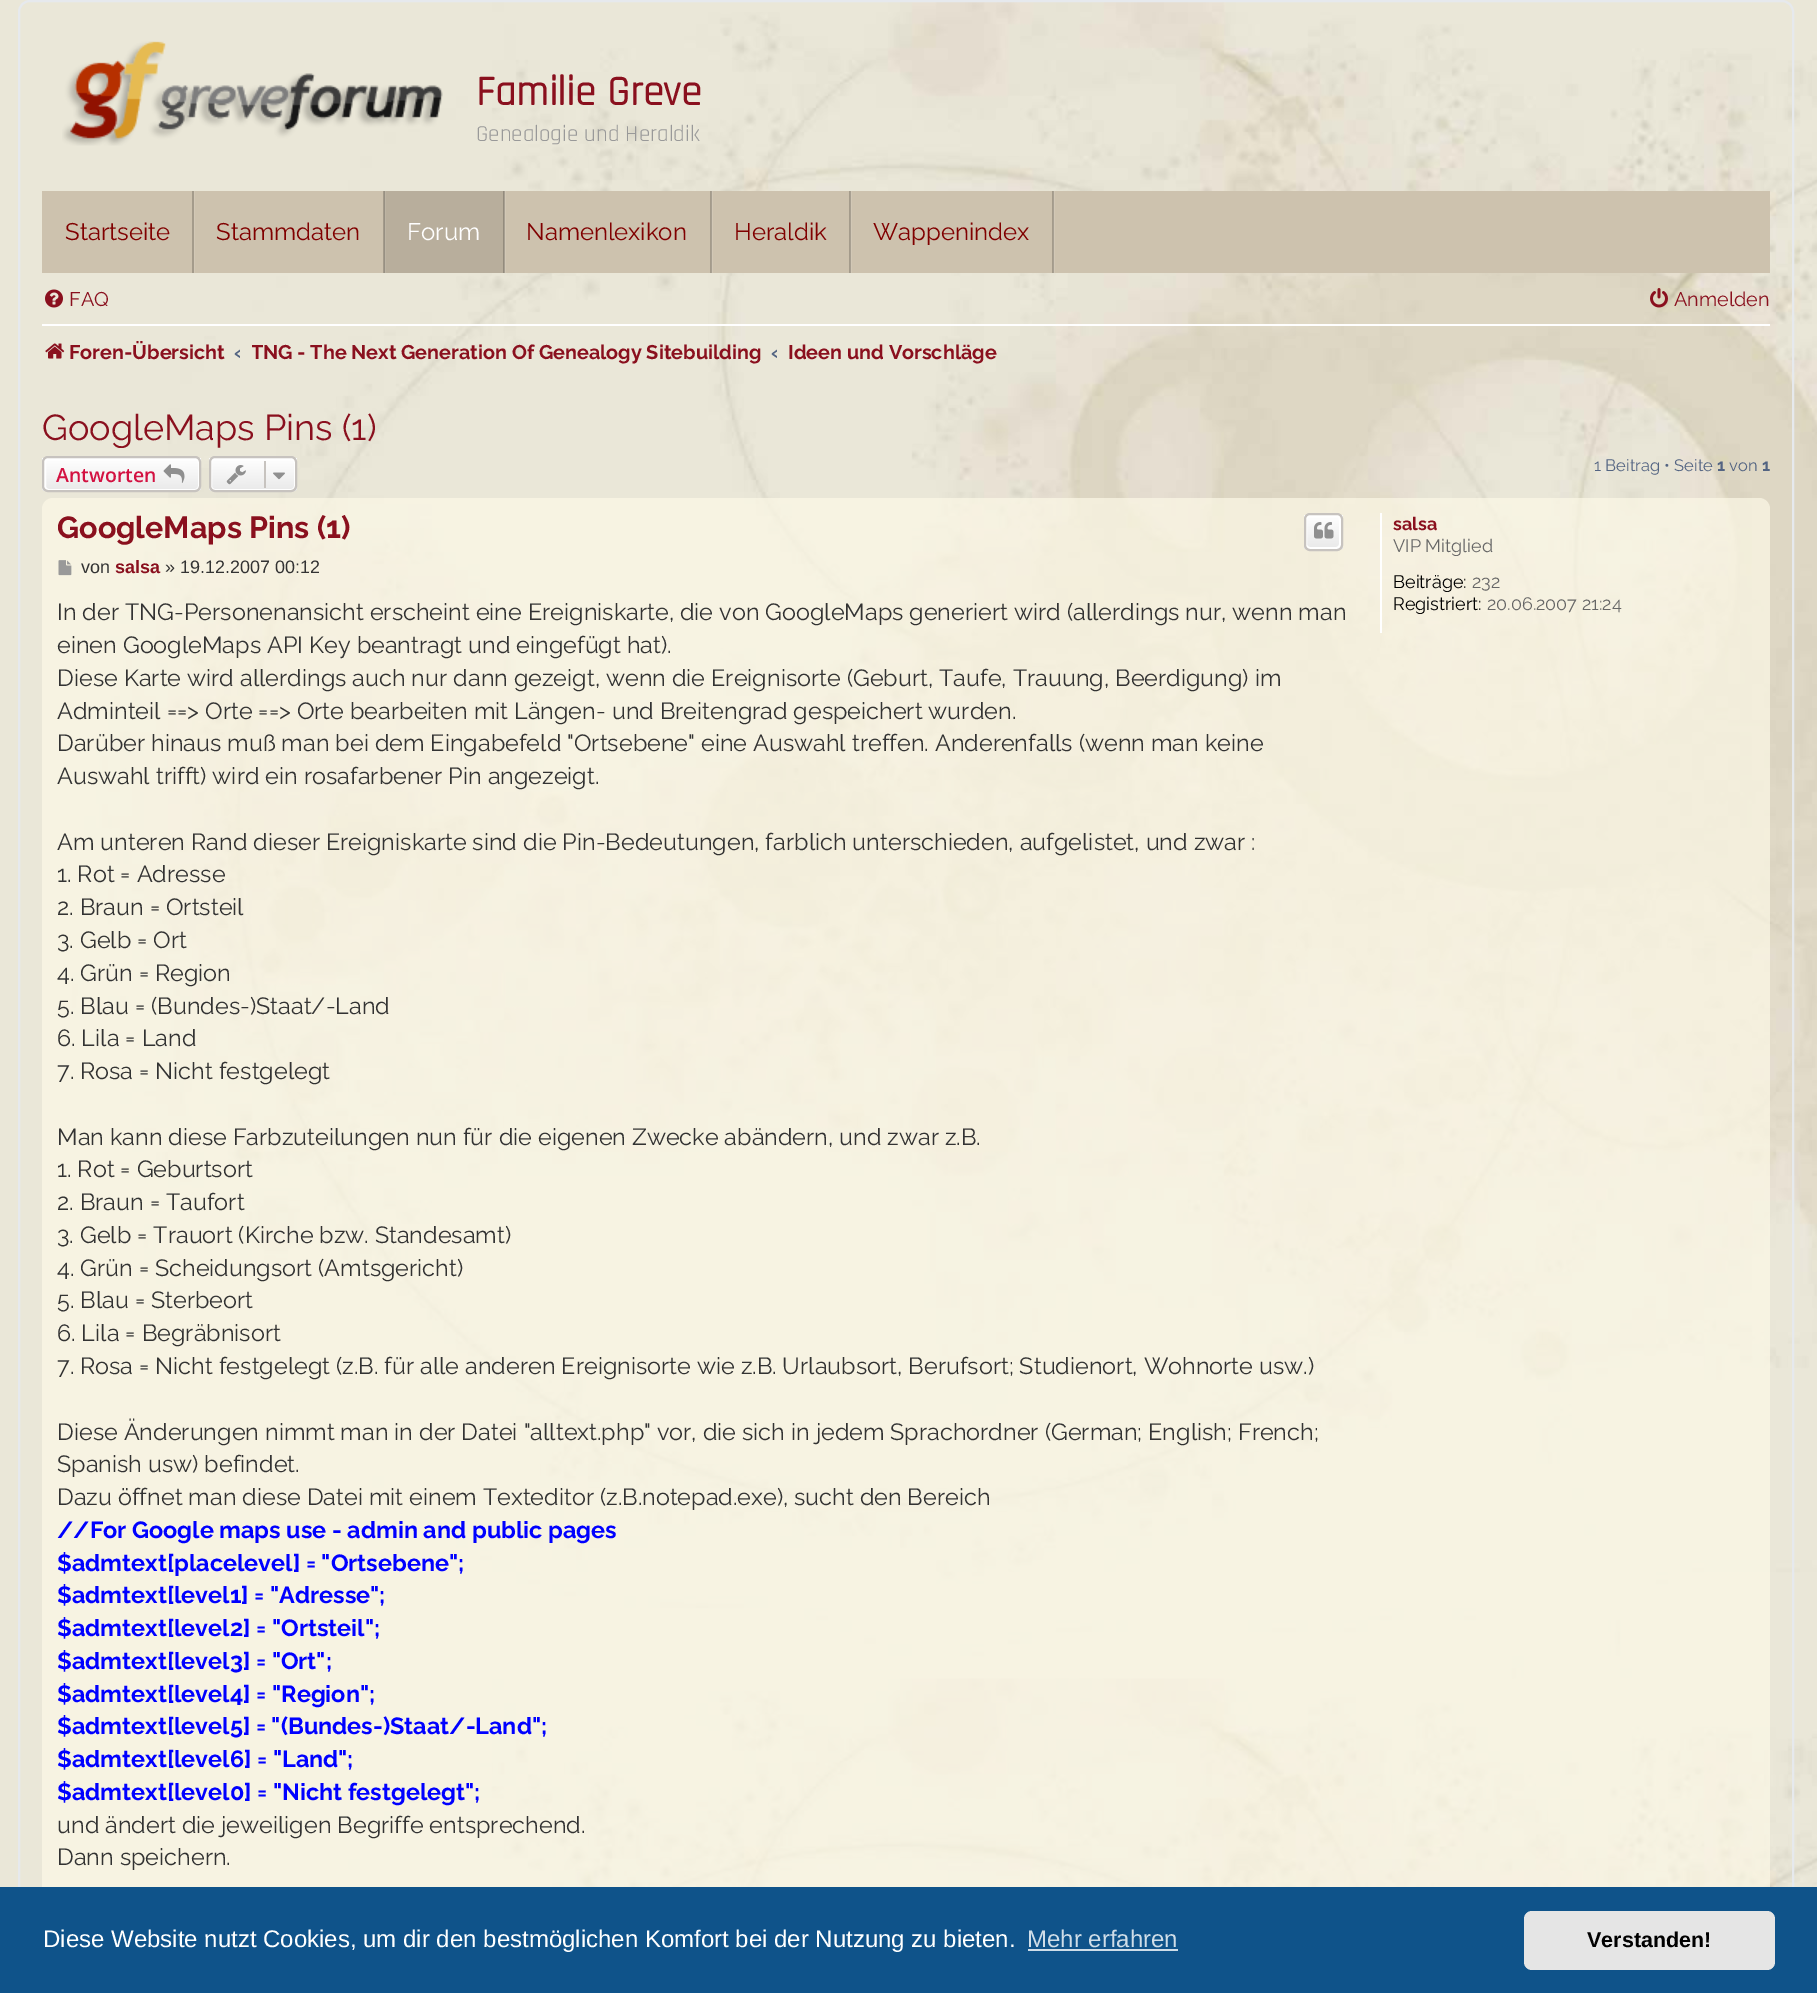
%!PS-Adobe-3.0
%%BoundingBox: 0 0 1817 1993
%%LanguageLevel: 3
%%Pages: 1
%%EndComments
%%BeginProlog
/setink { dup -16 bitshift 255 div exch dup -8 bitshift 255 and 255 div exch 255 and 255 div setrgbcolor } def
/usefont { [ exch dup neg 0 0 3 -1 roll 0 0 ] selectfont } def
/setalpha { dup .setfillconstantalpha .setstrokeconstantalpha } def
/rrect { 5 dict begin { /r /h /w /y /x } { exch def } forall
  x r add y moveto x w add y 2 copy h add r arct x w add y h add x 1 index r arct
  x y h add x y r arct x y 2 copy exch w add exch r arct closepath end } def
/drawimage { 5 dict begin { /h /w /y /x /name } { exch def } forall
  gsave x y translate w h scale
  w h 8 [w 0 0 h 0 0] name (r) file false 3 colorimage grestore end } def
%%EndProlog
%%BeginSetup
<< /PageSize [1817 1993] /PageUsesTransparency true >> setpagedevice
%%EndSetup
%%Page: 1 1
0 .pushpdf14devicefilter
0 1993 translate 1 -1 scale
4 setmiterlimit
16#FFFFFF setink
0 0 1817 1993 rectfill
(img1.raw) 0 0 1817 1887 drawimage
16#E6E9ED setink
2 setlinewidth
19 1 1774 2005 11 rrect stroke
(img2.raw) 62 41 381 105 drawimage
/Rajdhani-Bold 42 usefont
16#8A101E setink
476 105 moveto (Familie Greve) show
/Rajdhani-Regular 23 usefont
16#999999 setink
476 141 moveto (Genealogie und Heraldik) show
[
    [42 191 1728 82 16#CDC2AE]
    [194 191 1 82 16#D2C8B6]
    [192 191 2 82 16#A49B8B]
] { aload pop setink rectfill } forall
/Raleway-Regular 24 usefont
16#800000 setink
65 240 moveto (Startseite) show
16#D2C8B6 setink
384 191 2 82 rectfill
0.2 setalpha
16#000000 setink
383 191 2 82 rectfill
1 setalpha
16#800000 setink
216 240 moveto (Stammdaten) show
[
    [504 191 2 82 16#D2C8B6]
] { aload pop setink rectfill } forall
0.1 setalpha
[
    [384 191 120 82 16#000000]
] { aload pop setink rectfill } forall
0.2 setalpha
[
    [503 191 2 82 16#000000]
] { aload pop setink rectfill } forall
1 setalpha
16#FFFFFF setink
407 240 moveto (Forum) show
16#D2C8B6 setink
711 191 2 82 rectfill
0.2 setalpha
16#000000 setink
710 191 2 82 rectfill
1 setalpha
16#800000 setink
526 240 moveto (Namenlexikon) show
16#D2C8B6 setink
850 191 2 82 rectfill
0.2 setalpha
16#000000 setink
849 191 2 82 rectfill
1 setalpha
16#800000 setink
734 240 moveto (Heraldik) show
16#D2C8B6 setink
1053 191 2 82 rectfill
0.2 setalpha
16#000000 setink
1052 191 2 82 rectfill
1 setalpha
16#800000 setink
873 240 moveto (Wappenindex) show
(img3.raw) 45 289 18 19 drawimage
/Raleway-Regular 19.8 usefont
16#8A101E setink
69 306 moveto (FAQ) show
(img4.raw) 1650 288 18 20 drawimage
1674 306 moveto (Anmelden) show
16#FFFFFF setink
42 324 1728 2 rectfill
(img5.raw) 45 343 20 16 drawimage
/Raleway-Bold 19.8 usefont
16#8A101E setink
69 359 moveto (Foren-Übersicht) show
16#536482 setink
234 359 moveto (‹) show
gsave
252 330 510 44 rectclip
16#8A101E setink
251 359 moveto (TNG - The Next Generation Of Genealogy Sitebuilding) show
grestore
771 359 moveto (‹) show
16#8A101E setink
788 359 moveto (Ideen und Vorschläge) show
/Raleway-Regular 36 usefont
42 440 moveto (GoogleMaps Pins \(1\)) show
gsave
42 456 159 36 6 rrect clip newpath
gsave 42 458 moveto 201 458 lineto 201 491 lineto 42 491 lineto closepath clip newpath
<< /ShadingType 2 /ColorSpace /DeviceRGB /Coords [122 458 122 491] /Extend [true true] /Function << /FunctionType 2 /Domain [0 1] /C0 [1 1 1] /C1 [0.914 0.914 0.914] /N 1 >> >> shfill grestore
grestore
16#FFFFFF setink
45 459 154 31 4 rrect stroke
16#C7C3BF setink
43 457 157 34 5 rrect stroke
/OpenSans-SemiBold 19.5 usefont
16#D31141 setink
56 482 moveto (Antworten) show
(img6.raw) 163 464 22 19 drawimage
gsave
209 456 88 36 6 rrect clip newpath
gsave 209 458 moveto 297 458 lineto 297 491 lineto 209 491 lineto closepath clip newpath
<< /ShadingType 2 /ColorSpace /DeviceRGB /Coords [253 458 253 491] /Extend [true true] /Function << /FunctionType 2 /Domain [0 1] /C0 [1 1 1] /C1 [0.914 0.914 0.914] /N 1 >> >> shfill grestore
grestore
16#FFFFFF setink
211 459 84 31 4 rrect stroke
16#C7C3BF setink
210 457 86 34 5 rrect stroke
(img7.raw) 226 465 20 20 drawimage
264 461 2 27 rectfill
(img8.raw) 273 472 12 8 drawimage
/Raleway-Regular 16.5 usefont
16#536482 setink
1594 471 moveto (1 Beitrag • Seite) show
/Raleway-Bold 16.5 usefont
1717 471 moveto (1) show
/Raleway-Regular 16.5 usefont
1729 471 moveto (von) show
/Raleway-Bold 16.5 usefont
1762 471 moveto (1) show
0.7 setalpha
16#FCF8E6 setink
42 498 1728 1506 11 rrect fill
/Raleway-Bold 30.5 usefont
1 setalpha
16#8A101E setink
57 538 moveto (GoogleMaps Pins \(1\)) show
gsave
1304 513 39 38 6 rrect clip newpath
gsave 1304 515 moveto 1343 515 lineto 1343 549 lineto 1304 549 lineto closepath clip newpath
<< /ShadingType 2 /ColorSpace /DeviceRGB /Coords [1323 515 1323 549] /Extend [true true] /Function << /FunctionType 2 /Domain [0 1] /C0 [1 1 1] /C1 [0.914 0.914 0.914] /N 1 >> >> shfill grestore
grestore
16#FFFFFF setink
1306 516 34 32 4 rrect stroke
16#C7C3BF setink
1305 514 37 36 5 rrect stroke
(img9.raw) 1314 522 20 17 drawimage
(img10.raw) 58 560 14 16 drawimage
/LiberationSans-Regular 18 usefont
16#333333 setink
81 573 moveto (von) show
/LiberationSans-Bold 18 usefont
16#8A101E setink
115 573 moveto (salsa) show
/LiberationSans-Regular 18 usefont
16#333333 setink
165 573 moveto (» 19.12.2007 00:12) show
/Raleway-Regular 23.4 usefont
[
    [(In der TNG-Personenansicht erscheint eine Ereigniskarte, die von GoogleMaps generiert wird \(allerdings nur, wenn man) 57 620]
    [(einen GoogleMaps API Key beantragt und eingefügt hat\).) 57 653]
    [(Diese Karte wird allerdings auch nur dann gezeigt, wenn die Ereignisorte \(Geburt, Taufe, Trauung, Beerdigung\) im) 57 686]
    [(Adminteil ==> Orte ==> Orte bearbeiten mit Längen- und Breitengrad gespeichert wurden.) 57 719]
    [(Darüber hinaus muß man bei dem Eingabefeld "Ortsebene" eine Auswahl treffen. Anderenfalls \(wenn man keine) 57 751]
    [(Auswahl trifft\) wird ein rosafarbener Pin angezeigt.) 57 784]
    [(Am unteren Rand dieser Ereigniskarte sind die Pin-Bedeutungen, farblich unterschieden, aufgelistet, und zwar :) 57 850]
    [(1. Rot = Adresse) 57 882]
    [(2. Braun = Ortsteil) 57 915]
    [(3. Gelb = Ort) 57 948]
    [(4. Grün = Region) 57 981]
    [(5. Blau = \(Bundes-\)Staat/-Land) 57 1014]
    [(6. Lila = Land) 57 1046]
    [(7. Rosa = Nicht festgelegt) 57 1079]
    [(Man kann diese Farbzuteilungen nun für die eigenen Zwecke abändern, und zwar z.B.) 57 1145]
    [(1. Rot = Geburtsort) 57 1177]
    [(2. Braun = Taufort) 57 1210]
    [(3. Gelb = Trauort \(Kirche bzw. Standesamt\)) 57 1243]
    [(4. Grün = Scheidungsort \(Amtsgericht\)) 57 1276]
    [(5. Blau = Sterbeort) 57 1308]
    [(6. Lila = Begräbnisort) 57 1341]
    [(7. Rosa = Nicht festgelegt \(z.B. für alle anderen Ereignisorte wie z.B. Urlaubsort, Berufsort; Studienort, Wohnorte usw.\)) 57 1374]
    [(Diese Änderungen nimmt man in der Datei "alltext.php" vor, die sich in jedem Sprachordner \(German; English; French;) 57 1440]
    [(Spanish usw\) befindet.) 57 1472]
    [(Dazu öffnet man diese Datei mit einem Texteditor \(z.B.notepad.exe\), sucht den Bereich) 57 1505]
] { aload pop moveto show } forall
/Raleway-Bold 23.4 usefont
16#0000FF setink
[
    [(//For Google maps use - admin and public pages) 57 1538]
    [($admtext[placelevel] = "Ortsebene";) 57 1571]
    [($admtext[level1] = "Adresse";) 57 1603]
    [($admtext[level2] = "Ortsteil";) 57 1636]
    [($admtext[level3] = "Ort";) 57 1669]
    [($admtext[level4] = "Region";) 57 1702]
    [($admtext[level5] = "\(Bundes-\)Staat/-Land";) 57 1734]
    [($admtext[level6] = "Land";) 57 1767]
    [($admtext[level0] = "Nicht festgelegt";) 57 1800]
] { aload pop moveto show } forall
/Raleway-Regular 23.4 usefont
16#333333 setink
57 1833 moveto (und ändert die jeweiligen Begriffe entsprechend.) show
57 1865 moveto (Dann speichern.) show
16#FFFFFF setink
1380 513 2 120 rectfill
/Raleway-Bold 18 usefont
16#8A101E setink
1393 530 moveto (salsa) show
/Raleway-Regular 18 usefont
16#666666 setink
1393 552 moveto (VIP Mitglied) show
16#000000 setink
1393 588 moveto (Beiträge:) show
16#666666 setink
1472 588 moveto (232) show
16#000000 setink
1393 610 moveto (Registriert:) show
16#666666 setink
1487 610 moveto (20.06.2007 21:24) show
16#0F538A setink
0 1887 1817 106 rectfill
/LiberationSans-Regular 24 usefont
16#FFFFFF setink
43 1947 moveto (Diese Website nutzt Cookies, um dir den bestmöglichen Komfort bei der Nutzung zu bieten.) show
16#CFDDE8 setink
1027 1947 moveto (Mehr erfahren) show
1028 1949 150 2 rectfill
16#E5E5E5 setink
1524 1911 251 59 8 rrect fill
/LiberationSans-Bold 21.5 usefont
16#000000 setink
1587 1947 moveto (Verstanden!) show
.poppdf14devicefilter showpage
%%EOF
